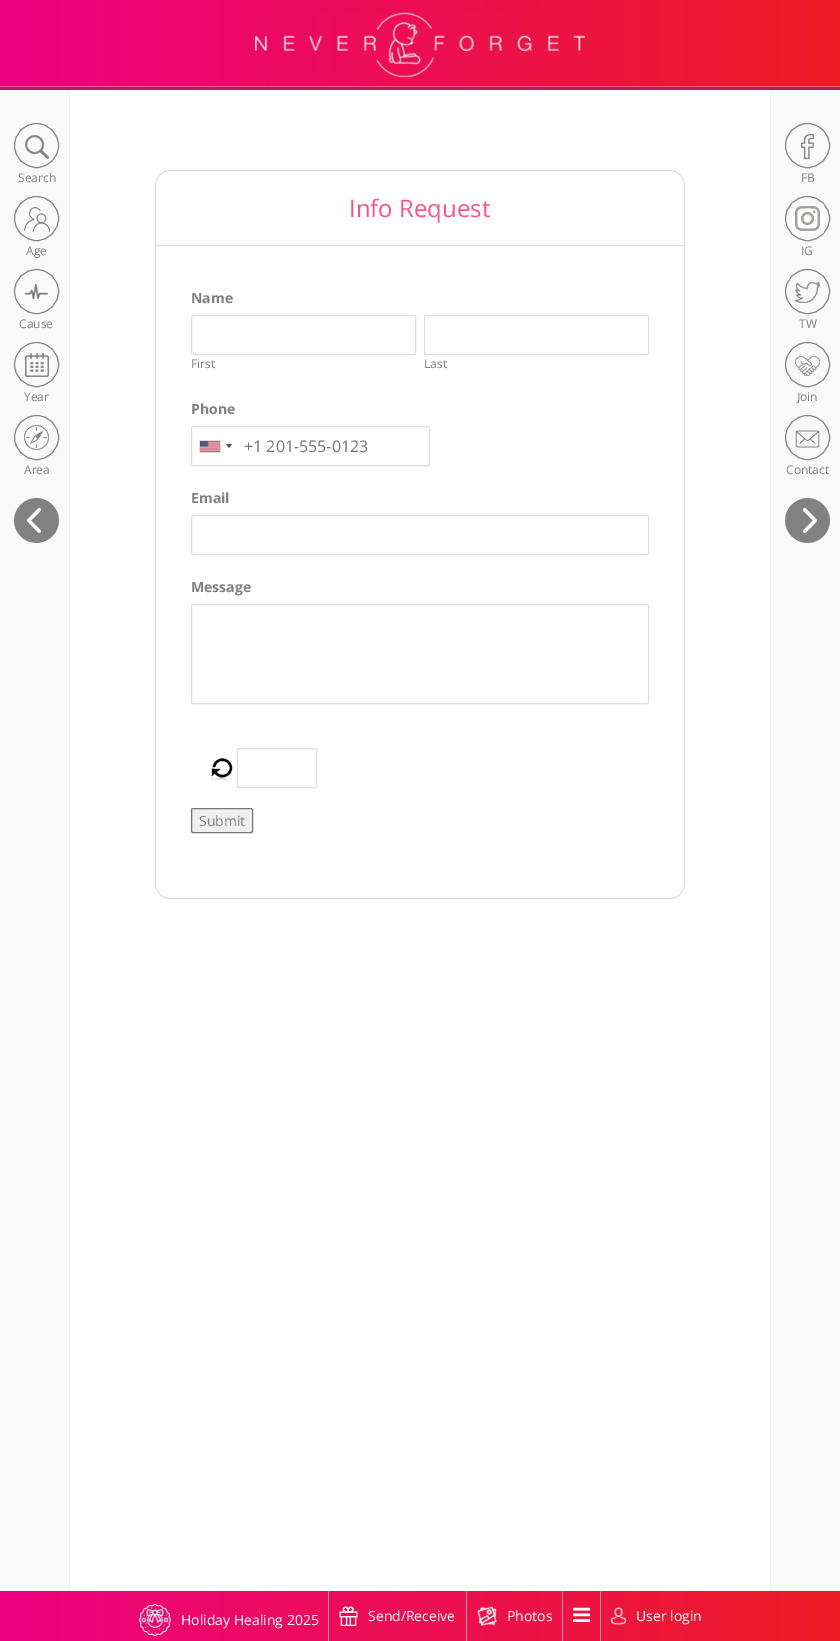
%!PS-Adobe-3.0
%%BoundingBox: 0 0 840 1641
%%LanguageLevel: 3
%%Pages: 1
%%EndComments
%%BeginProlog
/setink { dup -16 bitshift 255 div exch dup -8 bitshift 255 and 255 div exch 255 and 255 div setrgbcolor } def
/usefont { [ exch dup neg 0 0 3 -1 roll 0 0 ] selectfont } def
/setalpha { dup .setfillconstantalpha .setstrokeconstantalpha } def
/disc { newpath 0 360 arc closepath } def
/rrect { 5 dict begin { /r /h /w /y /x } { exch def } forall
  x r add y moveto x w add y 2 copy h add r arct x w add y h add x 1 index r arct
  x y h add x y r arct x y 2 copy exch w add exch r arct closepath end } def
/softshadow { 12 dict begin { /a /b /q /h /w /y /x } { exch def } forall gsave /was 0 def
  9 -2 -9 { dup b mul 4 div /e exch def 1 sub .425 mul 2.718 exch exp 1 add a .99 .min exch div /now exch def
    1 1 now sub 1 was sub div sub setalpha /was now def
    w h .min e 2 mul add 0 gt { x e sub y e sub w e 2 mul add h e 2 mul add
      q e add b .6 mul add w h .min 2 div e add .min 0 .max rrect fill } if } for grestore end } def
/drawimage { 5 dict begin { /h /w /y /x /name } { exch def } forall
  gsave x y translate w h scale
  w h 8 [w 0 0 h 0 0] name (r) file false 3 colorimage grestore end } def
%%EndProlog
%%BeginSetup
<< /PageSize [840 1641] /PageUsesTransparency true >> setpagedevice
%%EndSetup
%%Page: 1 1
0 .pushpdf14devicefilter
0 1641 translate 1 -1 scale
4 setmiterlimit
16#FFFFFF setink
0 0 840 1641 rectfill
gsave 0 0 moveto 840 0 lineto 840 86 lineto 0 86 lineto closepath clip newpath
<< /ShadingType 2 /ColorSpace /DeviceRGB /Coords [0 44 840 43] /Extend [true true] /Function << /FunctionType 2 /Domain [0 1] /C0 [0.925 0 0.502] /C1 [0.925 0.11 0.141] /N 1 >> >> shfill grestore
gsave 0 86 moveto 840 86 lineto 840 87 lineto 0 87 lineto closepath clip newpath
<< /ShadingType 2 /ColorSpace /DeviceRGB /Coords [0 44 840 43] /Extend [true true] /Function << /FunctionType 2 /Domain [0 1] /C0 [0.949 0.302 0.651] /C1 [0.949 0.376 0.4] /N 1 >> >> shfill grestore
16#B21E57 setink
0 87 840 3 rectfill
(img1.raw) 255 12 330 66 drawimage
16#F9F9F9 setink
0 90 69 1501 rectfill
16#F1F1F1 setink
69 90 1 1501 rectfill
16#858585 setink
36.5 145.5 22 disc stroke
(img2.raw) 25 135 24 24 drawimage
/OpenSans-Regular 12 usefont
16#818181 setink
18 182 moveto (Search) show
16#858585 setink
36.5 218.5 22 disc stroke
(img3.raw) 24 207 26 25 drawimage
16#818181 setink
26 255 moveto (Age) show
16#858585 setink
36.5 291.5 22 disc stroke
(img4.raw) 25 284 23 15 drawimage
16#818181 setink
19 328 moveto (Cause) show
16#858585 setink
36.5 364.5 22 disc stroke
(img5.raw) 25 353 24 24 drawimage
16#818181 setink
24 401 moveto (Year) show
16#858585 setink
36.5 437.5 22 disc stroke
(img6.raw) 24 425 25 25 drawimage
16#818181 setink
24 474 moveto (Area) show
(img7.raw) 14 498 45 45 drawimage
16#F9F9F9 setink
771 90 69 1501 rectfill
16#F1F1F1 setink
770 90 1 1501 rectfill
16#858585 setink
807.5 145.5 22 disc stroke
(img8.raw) 801 134 13 25 drawimage
16#818181 setink
801 182 moveto (FB) show
16#858585 setink
807.5 218.5 22 disc stroke
(img9.raw) 792 203 32 31 drawimage
16#818181 setink
801 255 moveto (IG) show
16#858585 setink
807.5 291.5 22 disc stroke
(img10.raw) 795 282 25 21 drawimage
16#818181 setink
799 328 moveto (TW) show
16#858585 setink
807.5 364.5 22 disc stroke
(img11.raw) 795 356 25 20 drawimage
16#818181 setink
797 401 moveto (Join) show
16#858585 setink
807.5 437.5 22 disc stroke
(img12.raw) 795 430 25 18 drawimage
16#818181 setink
786 474 moveto (Contact) show
(img13.raw) 785 498 45 45 drawimage
16#DDDDDD setink
155.5 170.5 529 728 14.5 rrect stroke
156 245 528 1 rectfill
/OpenSans-Regular 24 usefont
16#F95389 setink
349 217 moveto (Info Request) show
/OpenSans-Bold 14 usefont
16#818181 setink
191 303 moveto (Name) show
16#DFDFDF setink
191.5 315.5 224 39 1.5 rrect stroke
/OpenSans-Regular 12 usefont
16#818181 setink
191 368 moveto (First) show
16#DFDFDF setink
424.5 315.5 224 39 1.5 rrect stroke
16#818181 setink
424 368 moveto (Last) show
/OpenSans-Bold 14 usefont
191 414 moveto (Phone) show
16#DFDFDF setink
191.5 426.5 238 39 1.5 rrect stroke
16#888888 setink
200 441 20 11 0 0.5 1 softshadow
(img14.raw) 200 441 20 11 drawimage
16#555555 setink
226 444 moveto 232 444 lineto 229 448 lineto closepath fill
/OpenSans-Regular 16 usefont
16#757575 setink
244 452 moveto (+1 201-555-0123) show
/OpenSans-Bold 14 usefont
16#818181 setink
191 503 moveto (Email) show
16#DFDFDF setink
191.5 515.5 457 39 1.5 rrect stroke
16#818181 setink
191 592 moveto (Message) show
16#DFDFDF setink
191.5 604.5 457 99 1.5 rrect stroke
(img15.raw) 211 758 22 23 drawimage
237.5 748.5 79 39 1.5 rrect stroke
16#EFEFEF setink
191.5 808.5 61 24 1.5 rrect gsave fill grestore
16#767676 setink
stroke
/OpenSans-Regular 14 usefont
16#818181 setink
199 826 moveto (Submit) show
gsave 0 1591 moveto 840 1591 lineto 840 1641 lineto 0 1641 lineto closepath clip newpath
<< /ShadingType 2 /ColorSpace /DeviceRGB /Coords [0 1616 840 1616] /Extend [true true] /Function << /FunctionType 2 /Domain [0 1] /C0 [0.925 0 0.502] /C1 [0.925 0.11 0.141] /N 1 >> >> shfill grestore
16#F685AE setink
328 1591 1 50 rectfill
(img16.raw) 139 1604 32 32 drawimage
16#FFFFFF setink
181 1625 moveto (Holiday Healing 2025) show
16#F688A6 setink
466 1591 1 50 rectfill
(img17.raw) 339 1606 19 20 drawimage
16#FFFFFF setink
368 1621 moveto (Send/Receive) show
16#F689A1 setink
562 1591 1 50 rectfill
(img18.raw) 477 1606 20 20 drawimage
16#FFFFFF setink
507 1621 moveto (Photos) show
16#F68A9F setink
600 1591 1 50 rectfill
(img19.raw) 573 1607 18 15 drawimage
(img20.raw) 611 1607 15 18 drawimage
16#FFFFFF setink
636 1621 moveto (User login) show
.poppdf14devicefilter showpage
%%EOF
